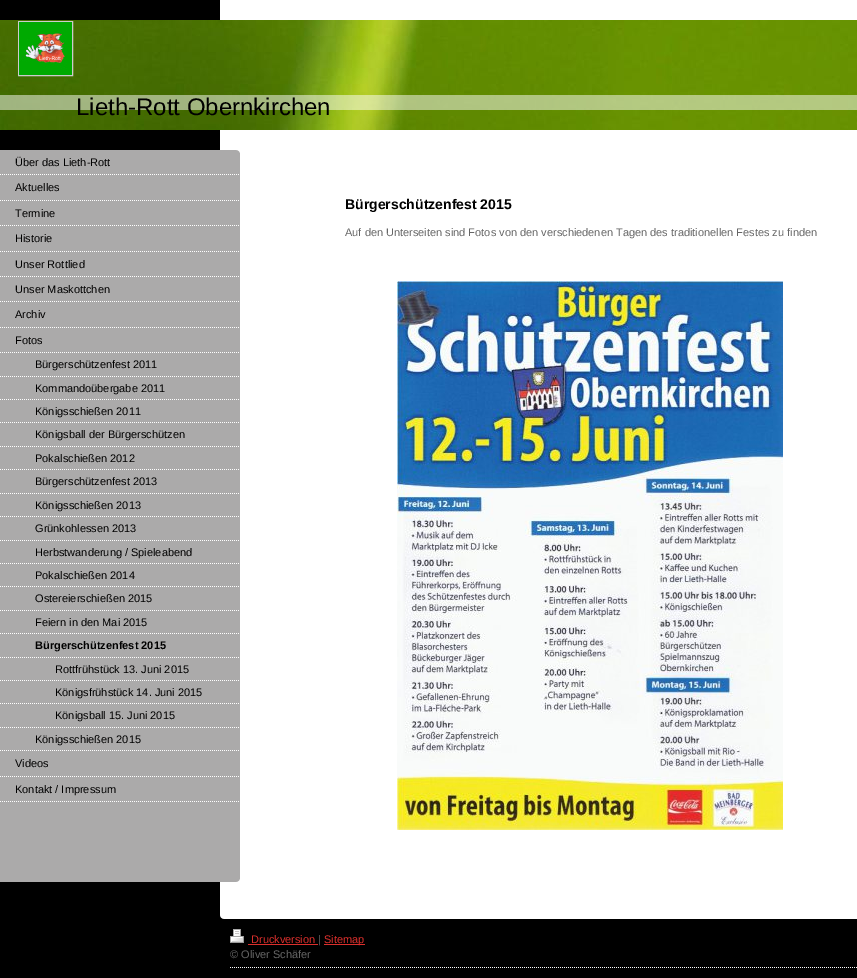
%!PS-Adobe-3.0
%%BoundingBox: 0 0 857 978
%%LanguageLevel: 3
%%Pages: 1
%%EndComments
%%BeginProlog
/setink { dup -16 bitshift 255 div exch dup -8 bitshift 255 and 255 div exch 255 and 255 div setrgbcolor } def
/usefont { [ exch dup neg 0 0 3 -1 roll 0 0 ] selectfont } def
/setalpha { dup .setfillconstantalpha .setstrokeconstantalpha } def
/drawimage { 5 dict begin { /h /w /y /x /name } { exch def } forall
  gsave x y translate w h scale
  w h 8 [w 0 0 h 0 0] name (r) file false 3 colorimage grestore end } def
%%EndProlog
%%BeginSetup
<< /PageSize [857 978] /PageUsesTransparency true >> setpagedevice
%%EndSetup
%%Page: 1 1
0 .pushpdf14devicefilter
0 978 translate 1 -1 scale
4 setmiterlimit
16#000000 setink
0 0 857 978 rectfill
16#FFFFFF setink
220 0 637 915 rectfill
(img1.raw) 0 20 857 110 drawimage
16#CCCCCC setink
18.5 21.5 54 54 rectstroke
(img2.raw) 19 22 53 53 drawimage
0.5 setalpha
16#FFFFFF setink
0 95 857 15 rectfill
/LiberationSans-Regular 24 usefont
1 setalpha
16#000000 setink
76 115 moveto (Lieth-Rott Obernkirchen) show
16#ABAAAA setink
0 150 240 732 rectfill
(img3.raw) 236 879 4 3 drawimage
(img4.raw) 236 150 4 3 drawimage
(img5.raw) 0 174 239 1 drawimage
/LiberationSans-Regular 11 usefont
16#000000 setink
15 166 moveto (Über das Lieth-Rott) show
(img5.raw) 0 200 239 1 drawimage
15 191 moveto (Aktuelles) show
(img5.raw) 0 225 239 1 drawimage
15 217 moveto (Termine) show
(img5.raw) 0 251 239 1 drawimage
15 242 moveto (Historie) show
(img5.raw) 0 276 239 1 drawimage
15 268 moveto (Unser Rottlied) show
(img5.raw) 0 301 239 1 drawimage
15 293 moveto (Unser Maskottchen) show
(img5.raw) 0 327 239 1 drawimage
15 318 moveto (Archiv) show
(img5.raw) 0 352 239 1 drawimage
15 344 moveto (Fotos) show
(img5.raw) 0 376 239 1 drawimage
35 368 moveto (Bürgerschützenfest 2011) show
(img5.raw) 0 399 239 1 drawimage
35 392 moveto (Kommandoübergabe 2011) show
(img5.raw) 0 422 239 1 drawimage
35 415 moveto (Königsschießen 2011) show
(img5.raw) 0 446 239 1 drawimage
35 438 moveto (Königsball der Bürgerschützen) show
(img5.raw) 0 469 239 1 drawimage
35 462 moveto (Pokalschießen 2012) show
(img5.raw) 0 493 239 1 drawimage
35 485 moveto (Bürgerschützenfest 2013) show
(img5.raw) 0 516 239 1 drawimage
35 509 moveto (Königsschießen 2013) show
(img5.raw) 0 540 239 1 drawimage
35 532 moveto (Grünkohlessen 2013) show
(img5.raw) 0 563 239 1 drawimage
35 556 moveto (Herbstwanderung / Spieleabend) show
(img5.raw) 0 586 239 1 drawimage
35 579 moveto (Pokalschießen 2014) show
(img5.raw) 0 610 239 1 drawimage
35 602 moveto (Ostereierschießen 2015) show
(img5.raw) 0 633 239 1 drawimage
35 626 moveto (Feiern in den Mai 2015) show
(img5.raw) 0 657 239 1 drawimage
/LiberationSans-Bold 11 usefont
35 649 moveto (Bürgerschützenfest 2015) show
(img5.raw) 0 680 239 1 drawimage
/LiberationSans-Regular 11 usefont
55 673 moveto (Rottfrühstück 13. Juni 2015) show
(img5.raw) 0 703 239 1 drawimage
55 696 moveto (Königsfrühstück 14. Juni 2015) show
(img5.raw) 0 727 239 1 drawimage
55 719 moveto (Königsball 15. Juni 2015) show
(img5.raw) 0 750 239 1 drawimage
35 743 moveto (Königsschießen 2015) show
(img5.raw) 0 776 239 1 drawimage
15 767 moveto (Videos) show
(img5.raw) 0 801 239 1 drawimage
15 793 moveto (Kontakt / Impressum) show
/LiberationSans-Bold 14 usefont
345 209 moveto (Bürgerschützenfest 2015) show
/LiberationSans-Regular 11 usefont
16#666666 setink
345 236 moveto (Auf den Unterseiten sind Fotos von den verschiedenen Tagen des traditionellen Festes zu finden) show
(img6.raw) 397 281 386 549 drawimage
(img7.raw) 220 915 637 4 drawimage
(img8.raw) 230 967 627 1 drawimage
(img9.raw) 230 929 14 14 drawimage
16#DB2F2C setink
251 943 moveto (Druckversion) show
248 944 70 1 rectfill
16#666666 setink
318 943 moveto (|) show
16#DB2F2C setink
324 944 41 1 rectfill
324 943 moveto (Sitemap) show
16#666666 setink
230 958 moveto (© Oliver Schäfer) show
.poppdf14devicefilter showpage
%%EOF
